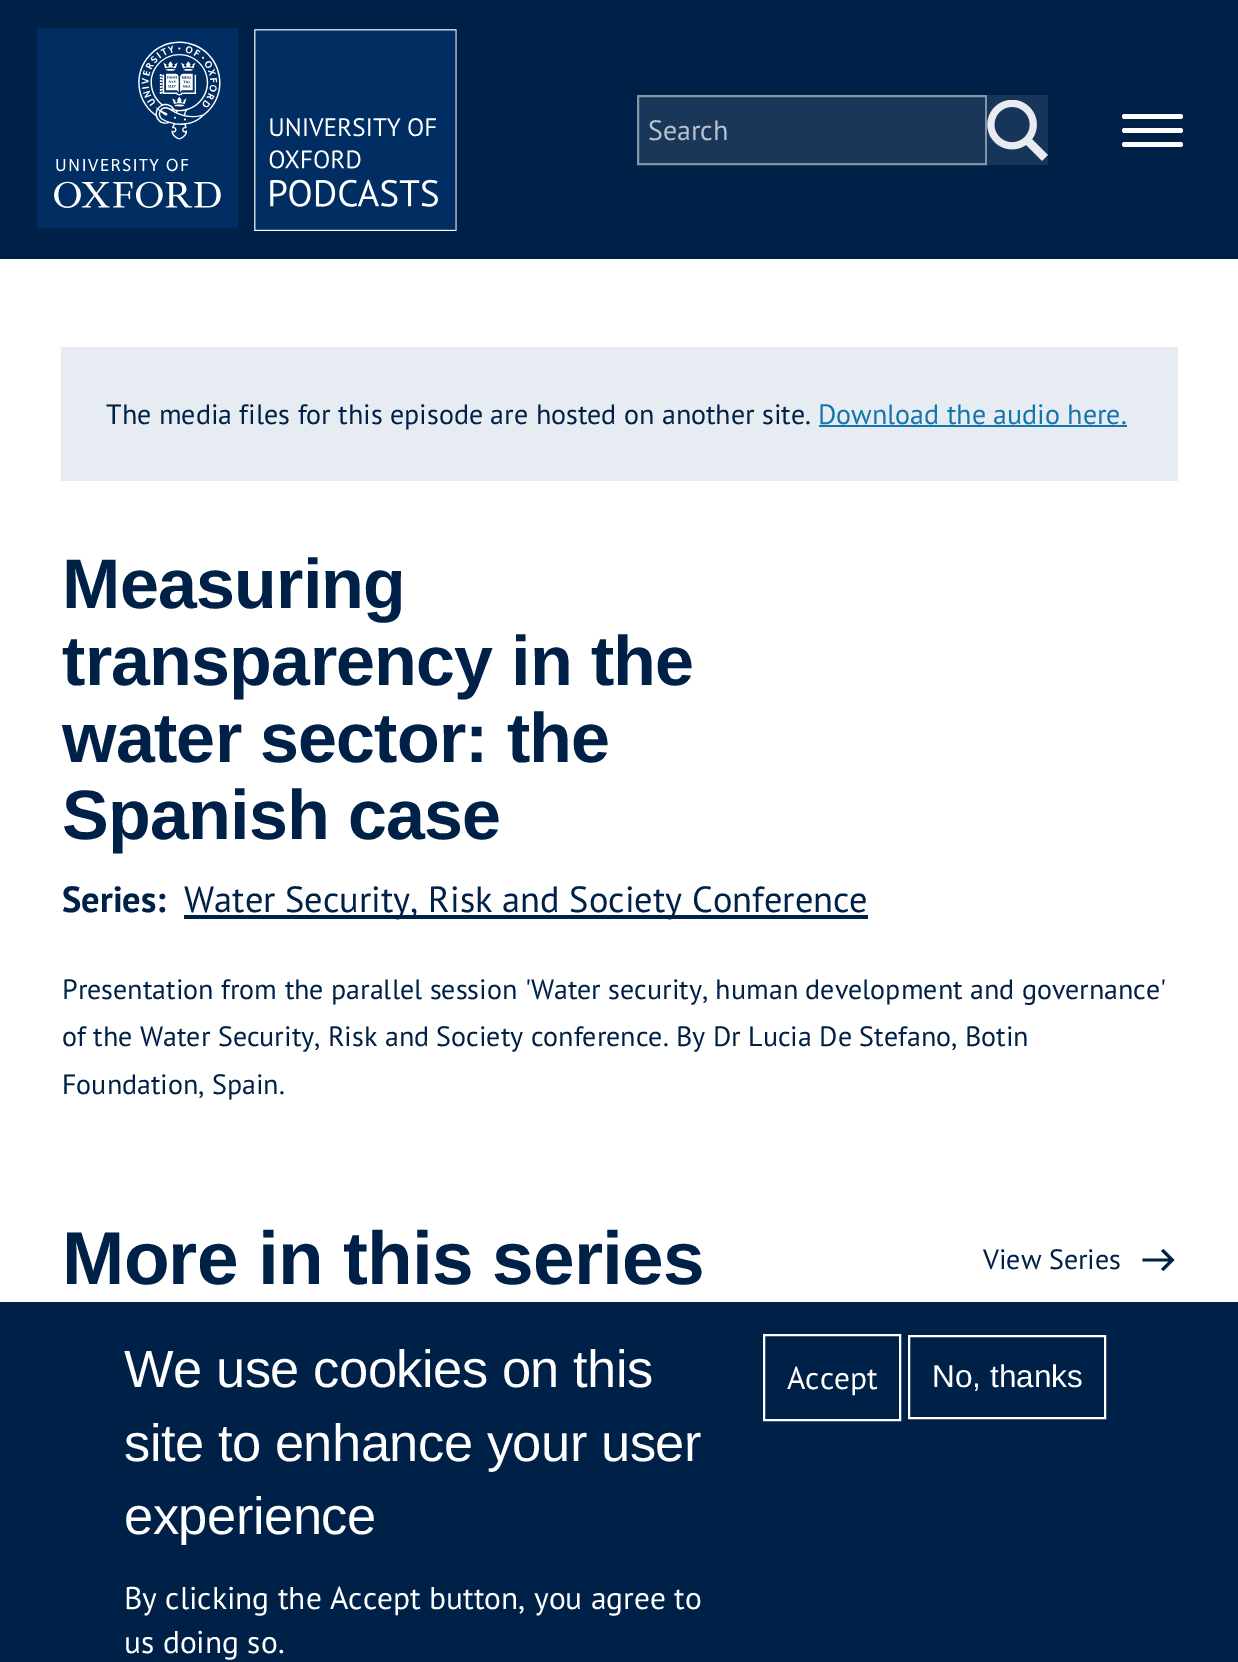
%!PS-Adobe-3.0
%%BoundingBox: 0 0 1238 1662
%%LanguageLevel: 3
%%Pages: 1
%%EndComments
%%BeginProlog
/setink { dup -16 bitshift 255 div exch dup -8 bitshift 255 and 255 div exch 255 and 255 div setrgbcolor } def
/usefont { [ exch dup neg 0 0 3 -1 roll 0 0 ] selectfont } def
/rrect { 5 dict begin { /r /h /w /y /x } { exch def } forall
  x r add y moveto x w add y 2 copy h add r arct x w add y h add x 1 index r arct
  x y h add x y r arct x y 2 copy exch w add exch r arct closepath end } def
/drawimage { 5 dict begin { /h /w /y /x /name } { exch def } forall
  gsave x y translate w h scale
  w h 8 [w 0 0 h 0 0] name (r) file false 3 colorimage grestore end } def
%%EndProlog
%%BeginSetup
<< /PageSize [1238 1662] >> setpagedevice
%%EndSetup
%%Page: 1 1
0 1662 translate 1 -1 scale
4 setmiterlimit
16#FFFFFF setink
0 0 1238 1662 rectfill
16#002147 setink
0 0 1238 259 rectfill
(img1.raw) 37 28 420 203 drawimage
16#1A3759 setink
638 96 moveto 986 96 lineto 986 164 lineto 638 164 lineto closepath gsave fill grestore
16#8196A2 setink
2 setlinewidth
stroke
/PTSans-Regular 28 usefont
16#BAC3CD setink
648 140 moveto (Search) show
16#173558 setink
987 95 61 70 rectfill
(img2.raw) 987 100 61 61 drawimage
16#FFFFFF setink
1122 128 61 5 2.5 rrect fill
1122 114 61 5 2.5 rrect fill
1122 142 61 5 2.5 rrect fill
16#E7ECF3 setink
61 347 1117 134 rectfill
16#002147 setink
106 424 moveto (The media files for this episode are hosted on another site.) show
16#1475AD setink
818 424 moveto (Download the audio here.) show
819 425 308 2 rectfill
/LiberationSans-Bold 70 usefont
16#002147 setink
62 608 moveto -0.75 0 (Measuring) ashow
62 685 moveto -0.75 0 (transparency in the) ashow
62 762 moveto -0.75 0 (water sector: the) ashow
62 839 moveto -0.75 0 (Spanish case) ashow
/PTSans-Bold 36.4 usefont
62 912 moveto (Series:) show
184 915 684 4 rectfill
/PTSans-Regular 36.4 usefont
184 912 moveto (Water Security, Risk and Society Conference) show
/PTSans-Regular 28 usefont
[
    [(Presentation from the parallel session 'Water security, human development and governance') 62 999]
    [(of the Water Security, Risk and Society conference. By Dr Lucia De Stefano, Botin) 62 1046]
    [(Foundation, Spain.) 62 1094]
] { aload pop moveto show } forall
/LiberationSans-Bold 74.75 usefont
62 1284 moveto -0.75 0 (More in this series) ashow
/PTSans-Regular 28 usefont
983 1269 moveto (View Series) show
1163.5 1249 moveto 1161 1251 lineto 1168.5 1258.5 lineto 1142.5 1258.5 lineto 1142.5 1261.5 lineto 1168.5 1261.5 lineto 1161 1269 lineto 1163.5 1271 lineto 1174.5 1260 lineto closepath fill
0 1302 1238 360 rectfill
/LiberationSans-Regular 52.5 usefont
16#FFFFFF setink
124 1387 moveto -0.5 0 (We use cookies on this) ashow
124 1461 moveto -0.5 0 (site to enhance your user) ashow
124 1534 moveto -0.5 0 (experience) ashow
/PTSans-Regular 31.5 usefont
124 1609 moveto (By clicking the Accept button, you agree to) show
124 1653 moveto (us doing so.) show
764 1335 136 85 rectstroke
787 1389 moveto (Accept) show
909 1336 196 82 rectstroke
/LiberationSans-Regular 31.5 usefont
932 1387 moveto (No, thanks) show
showpage
%%EOF
